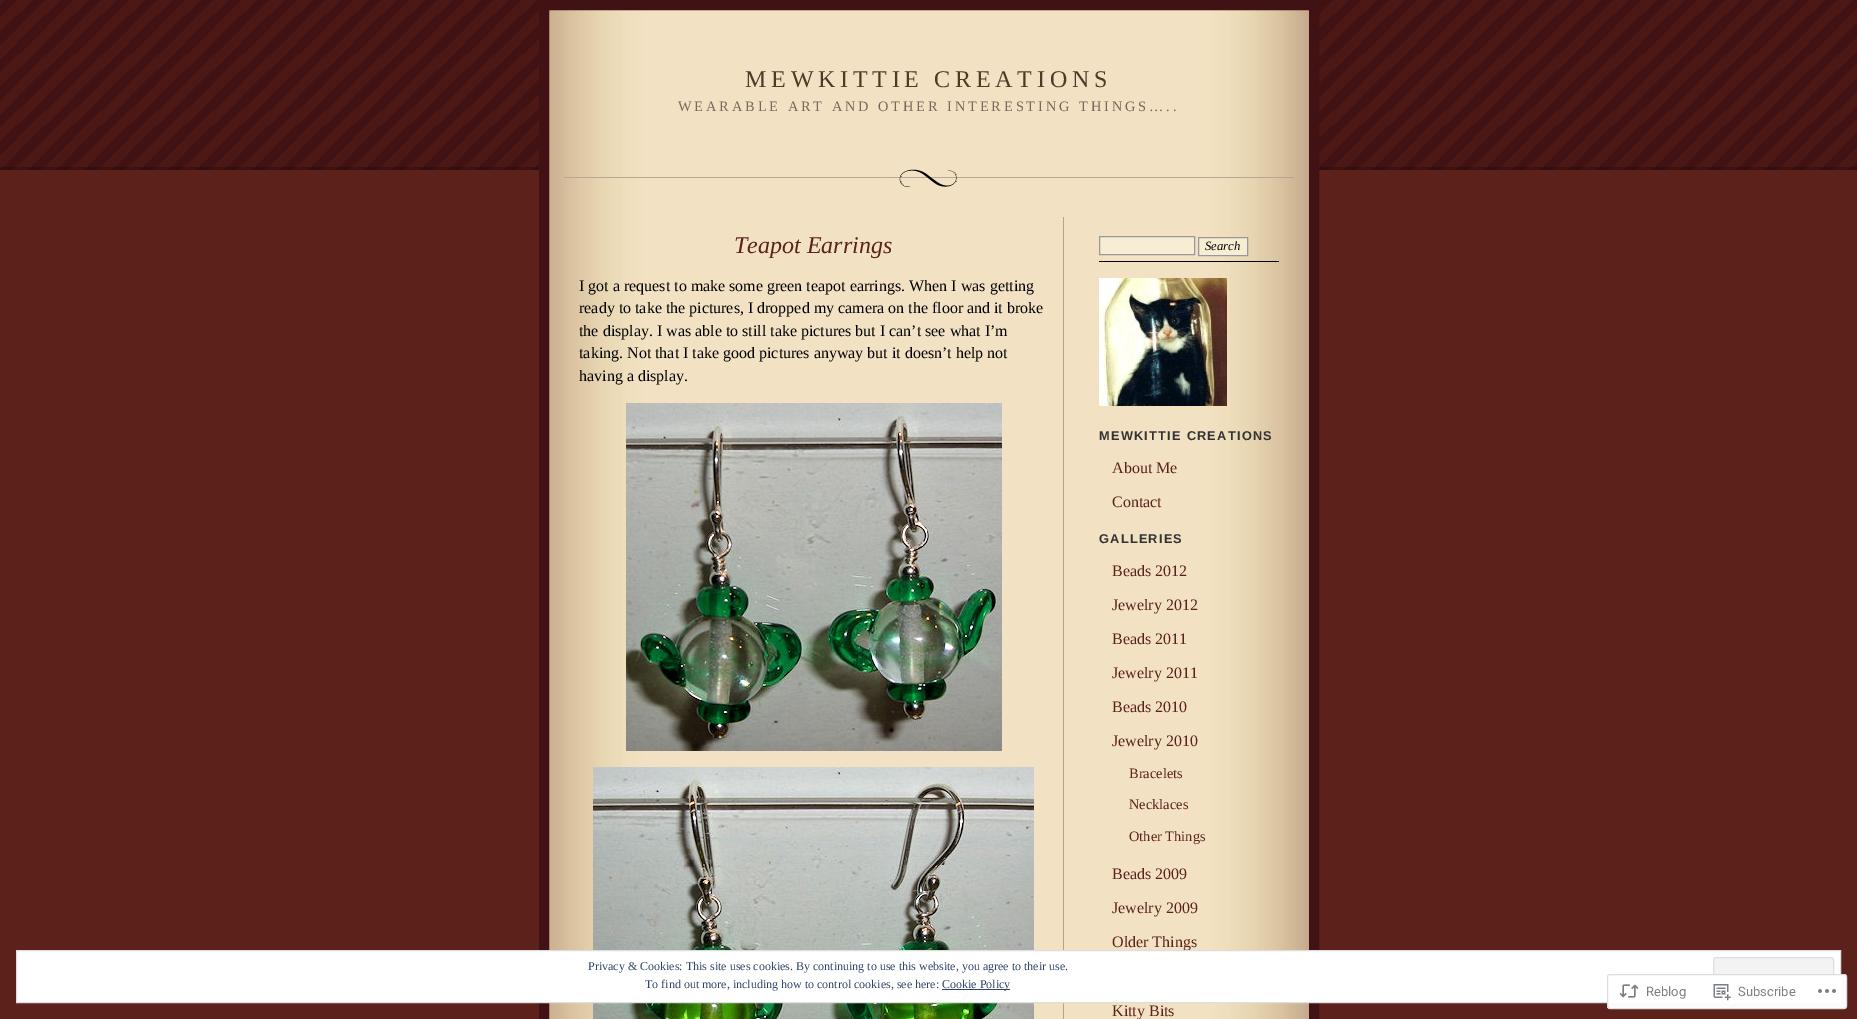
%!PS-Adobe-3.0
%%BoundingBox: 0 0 1857 1019
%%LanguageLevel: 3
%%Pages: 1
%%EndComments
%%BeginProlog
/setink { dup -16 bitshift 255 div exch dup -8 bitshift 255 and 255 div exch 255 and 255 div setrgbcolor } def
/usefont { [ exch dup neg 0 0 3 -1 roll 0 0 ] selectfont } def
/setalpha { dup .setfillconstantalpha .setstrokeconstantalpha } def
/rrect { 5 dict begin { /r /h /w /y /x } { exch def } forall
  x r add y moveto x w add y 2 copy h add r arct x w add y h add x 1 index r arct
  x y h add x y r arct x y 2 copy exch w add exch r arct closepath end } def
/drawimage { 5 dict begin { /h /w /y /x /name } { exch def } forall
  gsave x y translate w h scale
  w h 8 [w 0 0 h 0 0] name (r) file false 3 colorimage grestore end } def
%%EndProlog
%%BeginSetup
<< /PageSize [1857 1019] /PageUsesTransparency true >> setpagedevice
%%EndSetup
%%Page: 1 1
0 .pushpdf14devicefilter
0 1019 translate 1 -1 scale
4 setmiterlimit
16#5B211A setink
0 0 1857 1019 rectfill
(img1.raw) 0 0 1857 170 drawimage
(img2.raw) 549 10 760 1009 drawimage
16#411213 setink
10 setlinewidth
544 5 770 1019 rectstroke
(img3.raw) 564 169 730 18 drawimage
/LiberationSerif-Regular 24 usefont
16#4D3B27 setink
745 87 moveto 4.75 0 (MEWKITTIE CREATIONS) ashow
/LiberationSerif-Regular 14.4 usefont
16#76675A setink
678 111 moveto 2.9 0 (WEARABLE ART AND OTHER INTERESTING THINGS…..) ashow
16#BBA18C setink
1063 217 1 802 rectfill
/LiberationSerif-Italic 24 usefont
16#5B211A setink
734 253 moveto (Teapot Earrings) show
/LiberationSerif-Regular 16 usefont
16#000000 setink
[
    [(I got a request to make some green teapot earrings. When I was getting) 579 291]
    [(ready to take the pictures, I dropped my camera on the floor and it broke) 579 313]
    [(the display. I was able to still take pictures but I can’t see what I’m) 579 336]
    [(taking. Not that I take good pictures anyway but it doesn’t help not) 579 358]
    [(having a display.) 579 381]
] { aload pop moveto show } forall
(img4.raw) 626 403 376 348 drawimage
(img5.raw) 593 767 441 252 drawimage
1099 261 180 1 rectfill
16#F6EDD3 setink
1099.5 236.5 moveto 1194.5 236.5 lineto 1194.5 254.5 lineto 1099.5 254.5 lineto closepath gsave fill grestore
16#999999 setink
1 setlinewidth
stroke
16#F6EDD3 setink
1198.5 237.5 moveto 1247.5 237.5 lineto 1247.5 255.5 lineto 1198.5 255.5 lineto closepath gsave fill grestore
16#999999 setink
stroke
/LiberationSerif-Italic 12.75 usefont
16#000000 setink
1205 250 moveto (Search) show
(img6.raw) 1099 278 128 128 drawimage
/LiberationSans-Bold 12.75 usefont
16#333333 setink
1099 440 moveto 1.25 0 (MEWKITTIE CREATIONS) ashow
/LiberationSerif-Regular 16 usefont
16#5B211A setink
1112 473 moveto (About Me) show
1112 507 moveto (Contact) show
/LiberationSans-Bold 12.75 usefont
16#333333 setink
1099 543 moveto 1.25 0 (GALLERIES) ashow
/LiberationSerif-Regular 16 usefont
16#5B211A setink
[
    [(Beads 2012) 1112 576]
    [(Jewelry 2012) 1112 610]
    [(Beads 2011) 1112 644]
    [(Jewelry 2011) 1112 678]
    [(Beads 2010) 1112 712]
    [(Jewelry 2010) 1112 746]
] { aload pop moveto show } forall
/LiberationSerif-Regular 14.4 usefont
[
    [(Bracelets) 1129 778]
    [(Necklaces) 1129 809]
    [(Other Things) 1129 841]
] { aload pop moveto show } forall
/LiberationSerif-Regular 16 usefont
[
    [(Beads 2009) 1112 879]
    [(Jewelry 2009) 1112 913]
    [(Older Things) 1112 947]
    [(Kitty Bits) 1112 1016]
] { aload pop moveto show } forall
16#FFFFFF setink
16.5 950.5 moveto 1840.5 950.5 lineto 1840.5 1002.5 lineto 16.5 1002.5 lineto closepath gsave fill grestore
16#DEDEDE setink
stroke
/LiberationSerif-Regular 12 usefont
16#2E4467 setink
588 970 moveto (Privacy & Cookies: This site uses cookies. By continuing to use this website, you agree to their use.) show
16#F3F3F3 setink
1713.5 957.5 120 38 2.5 rrect gsave fill grestore
16#DEDEDE setink
stroke
16#2E4467 setink
645 988 moveto (To find out more, including how to control cookies, see here:) show
942 989 68 1 rectfill
942 988 moveto (Cookie Policy) show
0.98 setalpha
16#FFFFFF setink
1607 974 240 35 3 rrect fill
16#DCDCDE setink
1607.5 974.5 239 34 2.5 rrect stroke
1 setalpha
(img7.raw) 1619 984 20 14 drawimage
/Roboto-Regular 13 usefont
16#7B7F85 setink
1646 996 moveto (Reblog) show
(img8.raw) 1713 984 18 17 drawimage
1738 996 moveto (Subscribe) show
(img9.raw) 1818 989 18 4 drawimage
.poppdf14devicefilter showpage
%%EOF
